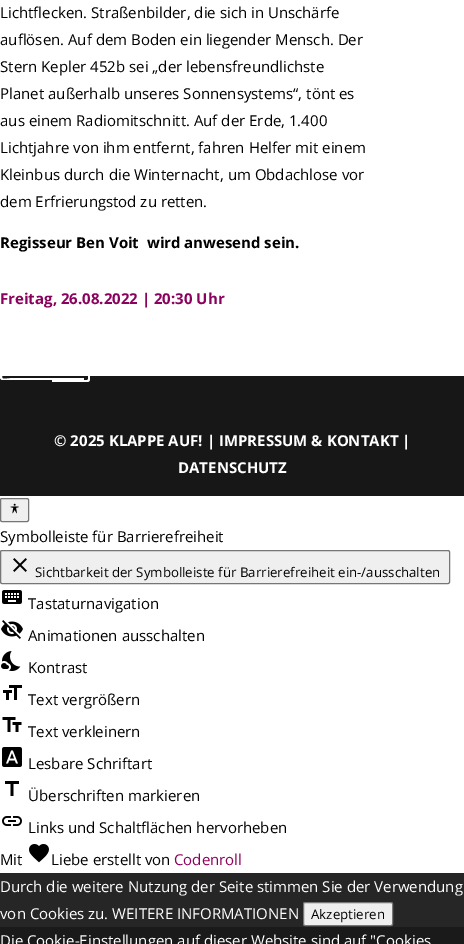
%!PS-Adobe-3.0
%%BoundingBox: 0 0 464 944
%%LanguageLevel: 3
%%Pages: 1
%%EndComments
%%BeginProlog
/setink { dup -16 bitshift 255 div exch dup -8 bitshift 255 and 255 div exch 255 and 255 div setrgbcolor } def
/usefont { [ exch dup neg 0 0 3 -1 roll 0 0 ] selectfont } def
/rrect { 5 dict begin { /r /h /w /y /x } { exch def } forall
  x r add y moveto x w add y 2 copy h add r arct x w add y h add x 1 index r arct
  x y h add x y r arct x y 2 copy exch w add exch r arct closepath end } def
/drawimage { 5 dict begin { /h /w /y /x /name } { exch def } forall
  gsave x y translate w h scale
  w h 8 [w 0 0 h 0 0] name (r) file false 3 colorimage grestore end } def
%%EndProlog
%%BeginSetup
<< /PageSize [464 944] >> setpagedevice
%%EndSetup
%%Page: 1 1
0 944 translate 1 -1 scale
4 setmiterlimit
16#FFFFFF setink
0 0 464 944 rectfill
/OpenSans-Regular 15 usefont
16#000000 setink
[
    [(Lichtflecken. Straßenbilder, die sich in Unschärfe) 0 18]
    [(auflösen. Auf dem Boden ein liegender Mensch. Der) 0 45]
    [(Stern Kepler 452b sei „der lebensfreundlichste) 0 72]
    [(Planet außerhalb unseres Sonnensystems“, tönt es) 0 99]
    [(aus einem Radiomitschnitt. Auf der Erde, 1.400) 0 126]
    [(Lichtjahre von ihm entfernt, fahren Helfer mit einem) 0 153]
    [(Kleinbus durch die Winternacht, um Obdachlose vor) 0 180]
    [(dem Erfrierungstod zu retten.) 0 207]
] { aload pop moveto show } forall
/OpenSans-Bold 15 usefont
0 248 moveto (Regisseur Ben Voit  wird anwesend sein.) show
16#8A025D setink
0 304 moveto (Freitag, 26.08.2022 | 20:30 Uhr) show
16#171717 setink
0 376 464 120 rectfill
16#FFFFFF setink
3 337 moveto 84 337 lineto 84 380 lineto 3 380 lineto 1 380 0 379 0 377 curveto 0 340 lineto 0 338 1 337 3 337 curveto closepath 3 339 moveto 84 339 lineto 84 378 lineto 16 378 lineto 1 378 2 382 2 371 curveto 2 340 lineto closepath eofill
52 334 moveto 87 334 lineto 89 334 90 335 90 337 curveto 90 379 lineto 90 381 89 382 87 382 curveto 52 382 lineto closepath 52 336 moveto 87 336 lineto 88 336 88 336 88 337 curveto 88 379 lineto 88 380 88 380 87 380 curveto 52 380 lineto closepath eofill
54 446 moveto (© 2025 KLAPPE AUF! | IMPRESSUM & KONTAKT |) show
178 473 moveto (DATENSCHUTZ) show
16#EFEFEF setink
0.5 498.5 28 23 1.5 rrect gsave fill grestore
16#767676 setink
stroke
(img1.raw) 10 503 9 11 drawimage
/OpenSans-Regular 15 usefont
16#000000 setink
0 542 moveto (Symbolleiste für Barrierefreiheit) show
16#EFEFEF setink
0.5 550.5 449 33 1.5 rrect gsave fill grestore
16#767676 setink
stroke
(img2.raw) 13 558 14 14 drawimage
/OpenSans-Regular 13.3 usefont
16#000000 setink
35 577 moveto (Sichtbarkeit der Symbolleiste für Barrierefreiheit ein-/ausschalten) show
(img3.raw) 2 590 20 14 drawimage
/OpenSans-Regular 15 usefont
28 609 moveto (Tastaturnavigation) show
(img4.raw) 1 620 22 19 drawimage
28 641 moveto (Animationen ausschalten) show
(img5.raw) 1 651 20 20 drawimage
28 673 moveto (Kontrast) show
(img6.raw) 3 685 19 15 drawimage
28 705 moveto (Text vergrößern) show
(img7.raw) 2 717 20 15 drawimage
28 737 moveto (Text verkleinern) show
(img8.raw) 2 747 20 20 drawimage
28 769 moveto (Lesbare Schriftart) show
(img9.raw) 5 781 14 15 drawimage
28 801 moveto (Überschriften markieren) show
(img10.raw) 2 816 20 10 drawimage
28 833 moveto (Links und Schaltflächen hervorheben) show
0 865 moveto (Mit) show
(img11.raw) 29 844 20 19 drawimage
51 865 moveto (Liebe erstellt von) show
16#8A025D setink
174 865 moveto (Codenroll) show
16#262626 setink
0 873 464 54 rectfill
16#FFFFFF setink
0 892 moveto (Durch die weitere Nutzung der Seite stimmen Sie der Verwendung) show
0 919 moveto (von Cookies zu. WEITERE INFORMATIONEN) show
16#EFEFEF setink
303.5 902.5 89 23 1.5 rrect gsave fill grestore
16#767676 setink
stroke
/OpenSans-Regular 13.3 usefont
16#000000 setink
311 919 moveto (Akzeptieren) show
16#1A1A1A setink
0 927 464 17 rectfill
/OpenSans-Regular 15 usefont
16#FFFFFF setink
0 946 moveto (Die Cookie-Einstellungen auf dieser Website sind auf "Cookies) show
showpage
%%EOF
